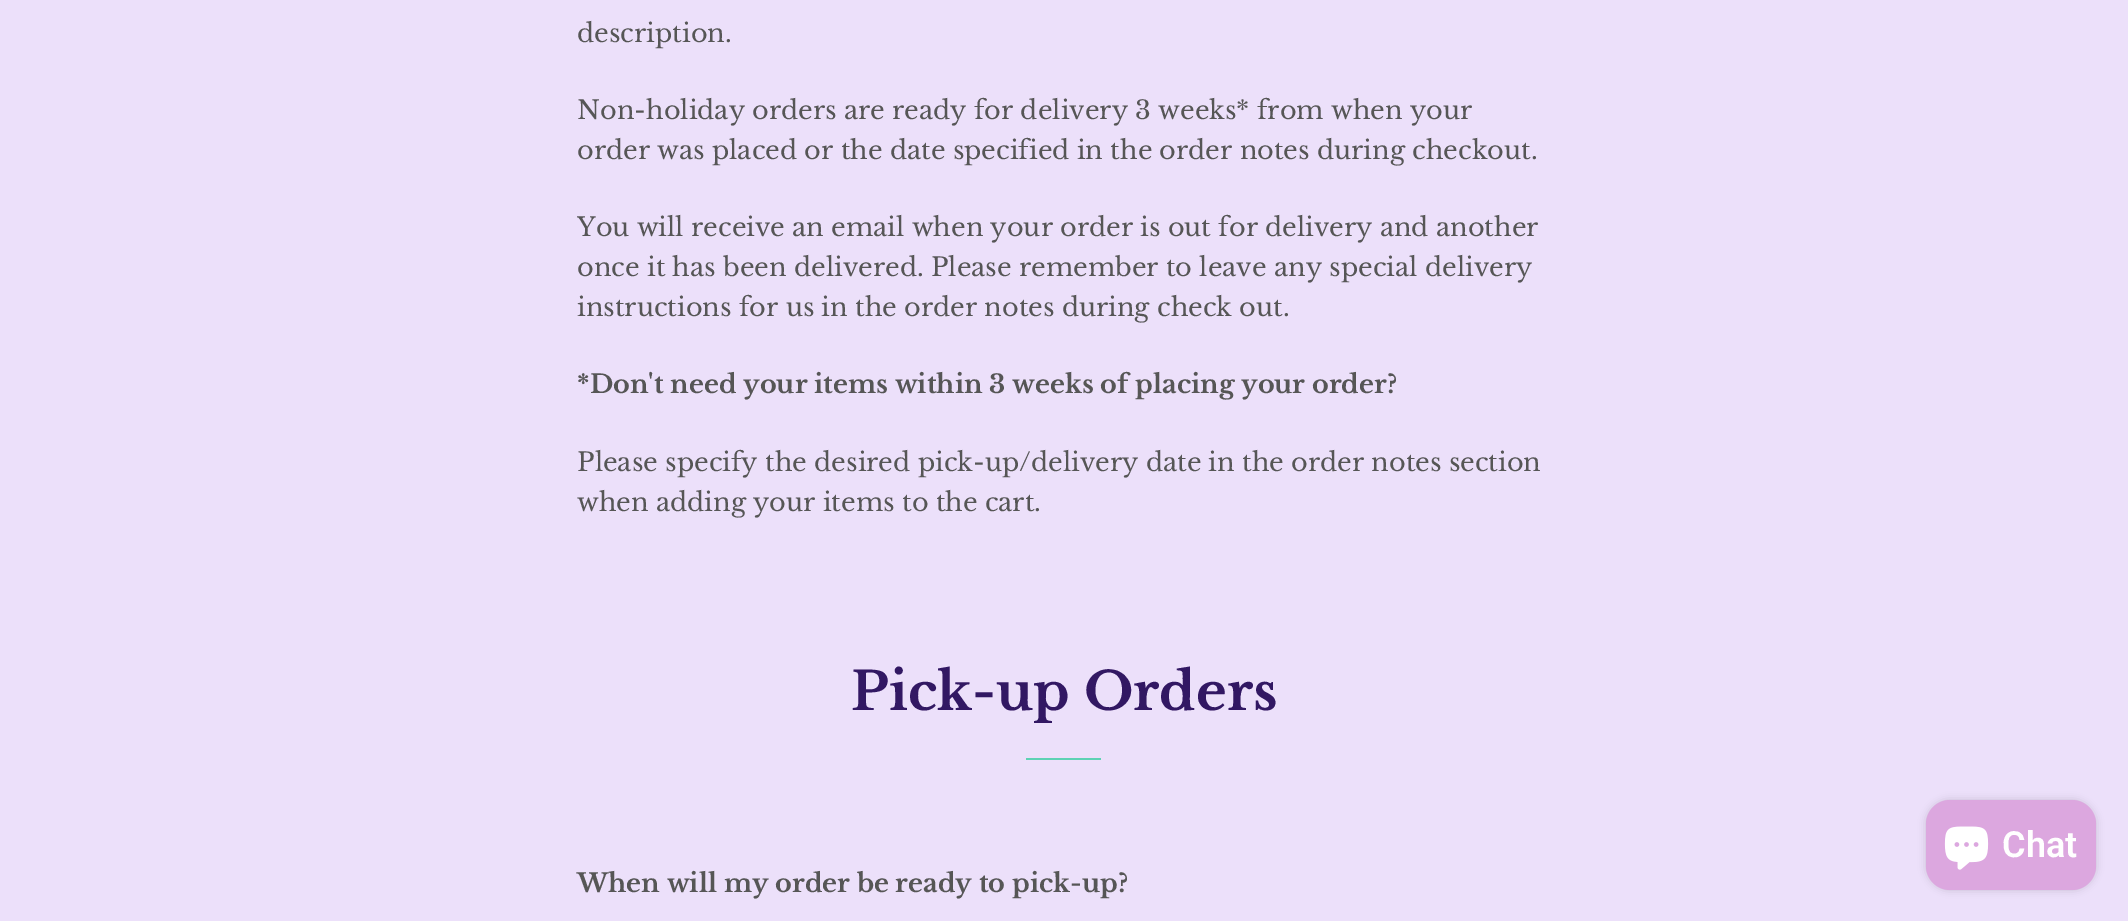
%!PS-Adobe-3.0
%%BoundingBox: 0 0 2128 921
%%LanguageLevel: 3
%%Pages: 1
%%EndComments
%%BeginProlog
/setink { dup -16 bitshift 255 div exch dup -8 bitshift 255 and 255 div exch 255 and 255 div setrgbcolor } def
/usefont { [ exch dup neg 0 0 3 -1 roll 0 0 ] selectfont } def
/setalpha { dup .setfillconstantalpha .setstrokeconstantalpha } def
/rrect { 5 dict begin { /r /h /w /y /x } { exch def } forall
  x r add y moveto x w add y 2 copy h add r arct x w add y h add x 1 index r arct
  x y h add x y r arct x y 2 copy exch w add exch r arct closepath end } def
/softshadow { 12 dict begin { /a /b /q /h /w /y /x } { exch def } forall gsave /was 0 def
  9 -2 -9 { dup b mul 4 div /e exch def 1 sub .425 mul 2.718 exch exp 1 add a .99 .min exch div /now exch def
    1 1 now sub 1 was sub div sub setalpha /was now def
    w h .min e 2 mul add 0 gt { x e sub y e sub w e 2 mul add h e 2 mul add
      q e add b .6 mul add w h .min 2 div e add .min 0 .max rrect fill } if } for grestore end } def
/drawimage { 5 dict begin { /h /w /y /x /name } { exch def } forall
  gsave x y translate w h scale
  w h 8 [w 0 0 h 0 0] name (r) file false 3 colorimage grestore end } def
%%EndProlog
%%BeginSetup
<< /PageSize [2128 921] /PageUsesTransparency true >> setpagedevice
%%EndSetup
%%Page: 1 1
0 .pushpdf14devicefilter
0 921 translate 1 -1 scale
4 setmiterlimit
16#ECE0FA setink
0 0 2128 921 rectfill
/LibreBaskerville-Regular 25.5 usefont
16#565656 setink
[
    [(description.) 577 42]
    [(Non-holiday orders are ready for delivery 3 weeks* from when your) 577 119]
    [(order was placed or the date specified in the order notes during checkout.) 577 159]
    [(You will receive an email when your order is out for delivery and another) 577 236]
    [(once it has been delivered. Please remember to leave any special delivery) 577 276]
    [(instructions for us in the order notes during check out.) 577 316]
] { aload pop moveto show } forall
/LibreBaskerville-Bold 25.5 usefont
577 393 moveto (*Don't need your items within 3 weeks of placing your order?) show
/LibreBaskerville-Regular 25.5 usefont
577 471 moveto (Please specify the desired pick-up/delivery date in the order notes section) show
577 511 moveto (when adding your items to the cart.) show
/LibreBaskerville-Bold 52.5 usefont
16#321863 setink
851 710 moveto (Pick-up Orders) show
16#5DD2B4 setink
1026 758 75 2 rectfill
/LibreBaskerville-Bold 25.5 usefont
16#565656 setink
577 892 moveto (When will my order be ready to pick-up?) show
16#000000 setink
1926 800 170 90 24 4 0.15 softshadow
16#DCA7DF setink
1926 800 170 90 24 rrect fill
(img1.raw) 1944 826 45 44 drawimage
/Roboto-SemiBold 36 usefont
16#FFFFFF setink
2002 857 moveto (Chat) show
.poppdf14devicefilter showpage
%%EOF
